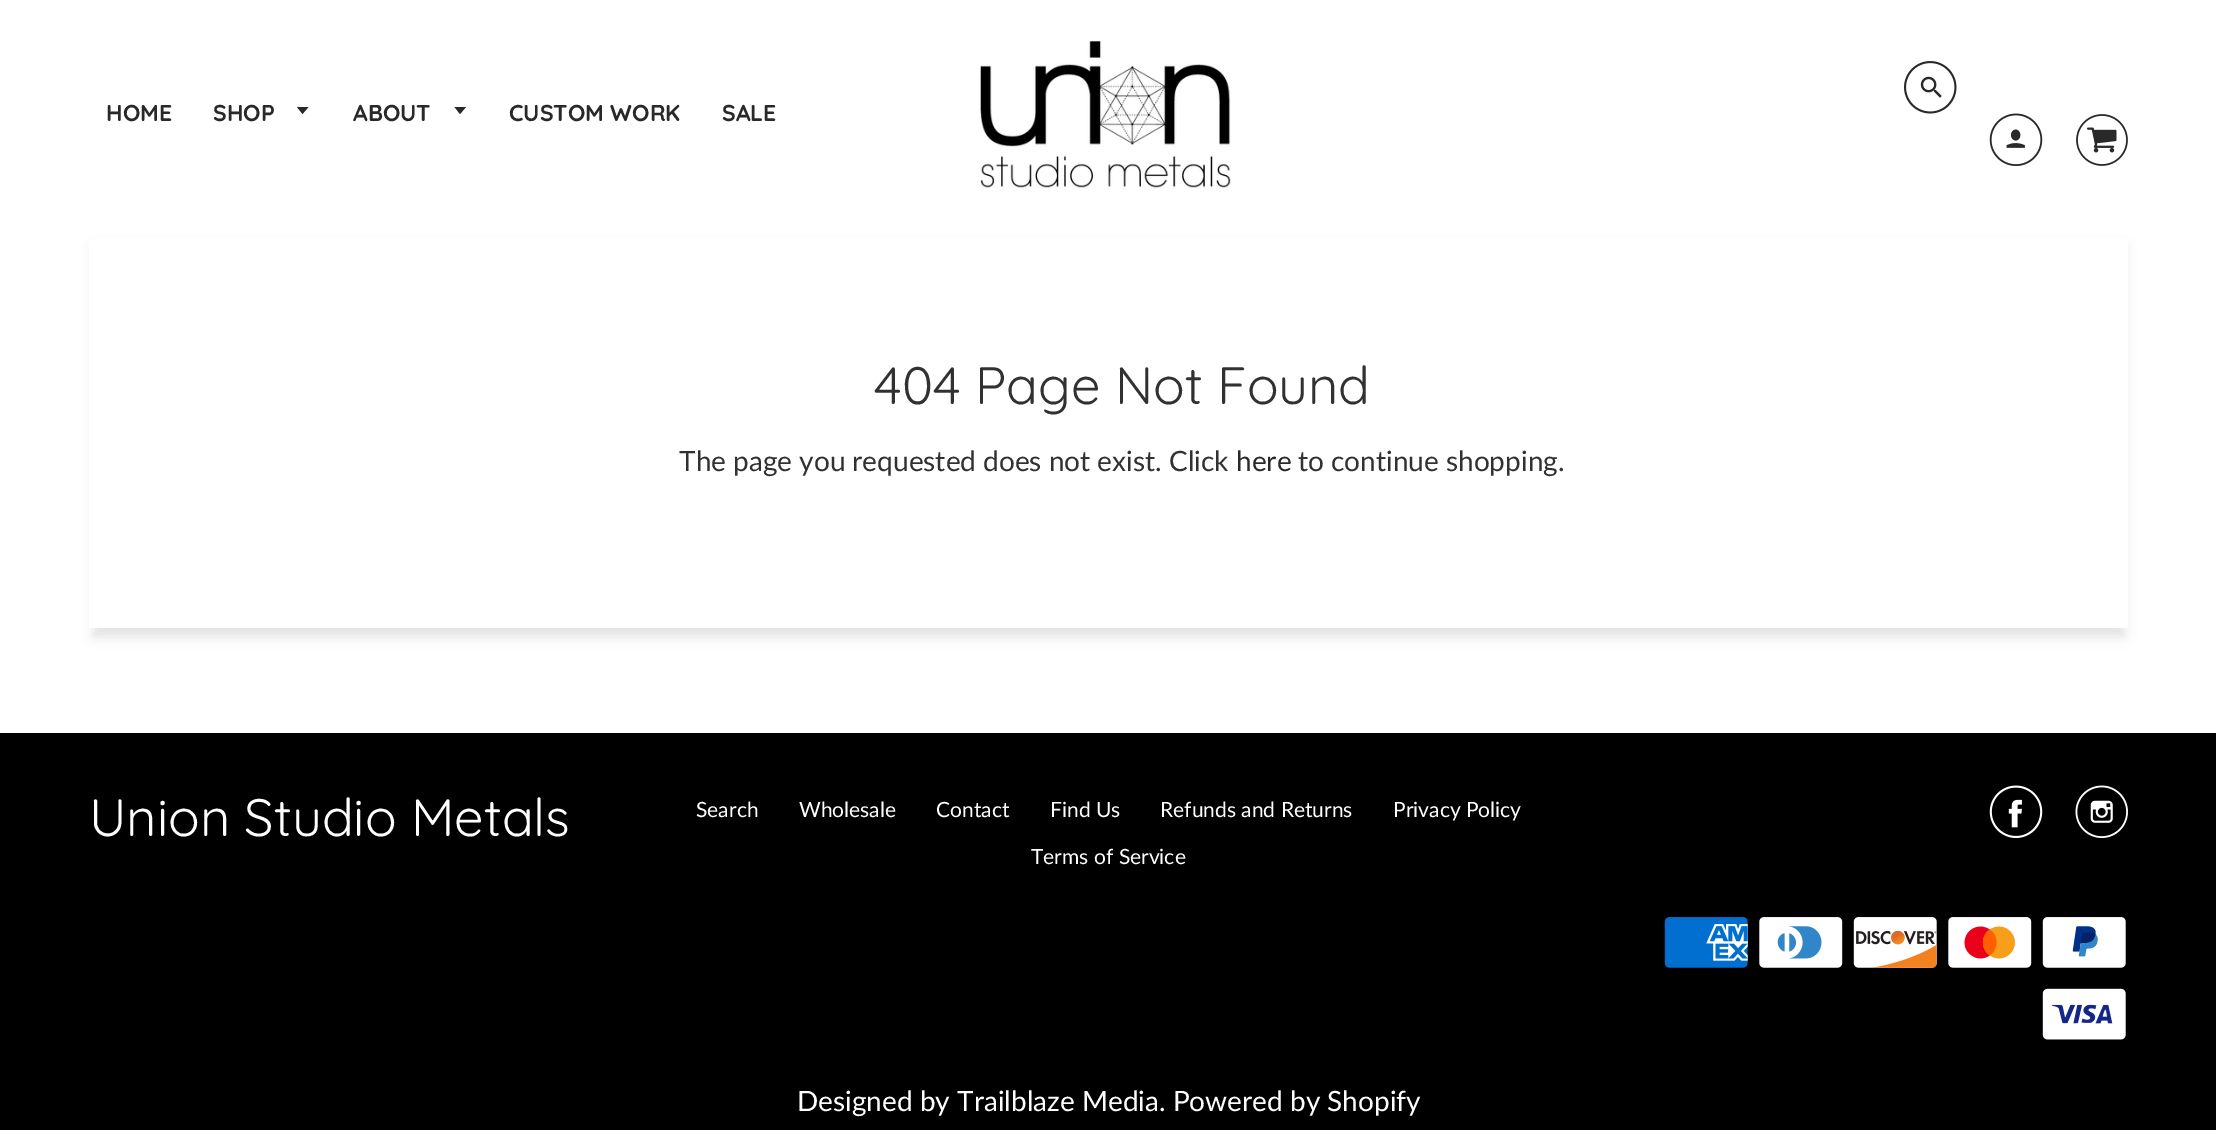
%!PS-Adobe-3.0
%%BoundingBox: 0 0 2216 1130
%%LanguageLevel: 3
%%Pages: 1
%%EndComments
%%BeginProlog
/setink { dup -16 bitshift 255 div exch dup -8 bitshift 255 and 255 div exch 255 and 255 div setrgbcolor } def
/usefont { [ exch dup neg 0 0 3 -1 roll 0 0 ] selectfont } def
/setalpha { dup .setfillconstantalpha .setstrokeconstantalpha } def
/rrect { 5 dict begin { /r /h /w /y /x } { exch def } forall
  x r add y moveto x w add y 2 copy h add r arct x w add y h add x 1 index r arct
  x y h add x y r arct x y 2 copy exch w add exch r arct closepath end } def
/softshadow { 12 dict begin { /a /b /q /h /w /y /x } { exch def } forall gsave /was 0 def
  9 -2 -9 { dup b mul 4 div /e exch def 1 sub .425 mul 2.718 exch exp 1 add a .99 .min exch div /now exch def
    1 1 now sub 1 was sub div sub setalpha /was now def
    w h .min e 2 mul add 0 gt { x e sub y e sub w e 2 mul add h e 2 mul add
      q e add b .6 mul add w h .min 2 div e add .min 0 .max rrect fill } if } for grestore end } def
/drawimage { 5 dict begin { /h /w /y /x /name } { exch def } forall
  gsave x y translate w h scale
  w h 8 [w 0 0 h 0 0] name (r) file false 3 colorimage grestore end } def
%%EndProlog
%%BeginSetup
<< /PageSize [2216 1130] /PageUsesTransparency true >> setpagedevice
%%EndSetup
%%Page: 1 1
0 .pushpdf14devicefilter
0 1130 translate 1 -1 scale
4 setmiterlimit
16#FFFFFF setink
0 0 2216 1130 rectfill
/Quicksand-Bold 23 usefont
16#292929 setink
106 121 moveto (HOME) show
213 121 moveto (SHOP) show
297 107 moveto 302.5 114 lineto 308.5 107 lineto closepath fill
353 121 moveto (ABOUT) show
454.5 107 moveto 460 114 lineto 466 107 lineto closepath fill
509 121 moveto (CUSTOM WORK) show
722 121 moveto (SALE) show
(img1.raw) 978 41 253 148 drawimage
(img2.raw) 1904 61 53 53 drawimage
(img3.raw) 1989 113 54 53 drawimage
(img4.raw) 2076 114 52 52 drawimage
16#A3A3A3 setink
93 247 2032 390 0 6 0.32 softshadow
16#FFFFFF setink
89 239 2039 389 rectfill
/Quicksand-Regular 52.5 usefont
16#313131 setink
874 404 moveto (404 Page Not Found) show
/Lato-Regular 28 usefont
679 471 moveto (The page you requested does not exist. Click) show
16#292929 setink
1236 471 moveto (here) show
16#313131 setink
1298 471 moveto (to continue shopping.) show
16#000000 setink
0 733 2216 397 rectfill
/Quicksand-Regular 52.5 usefont
16#FFFFFF setink
89 836 moveto (Union Studio Metals) show
/Lato-Regular 21 usefont
[
    [(Search) 696 817]
    [(Wholesale) 799 817]
    [(Contact) 936 817]
    [(Find Us) 1050 817]
    [(Refunds and Returns) 1160 817]
    [(Privacy Policy) 1393 817]
    [(Terms of Service) 1031 864]
] { aload pop moveto show } forall
(img5.raw) 1989 785 54 53 drawimage
(img6.raw) 2075 785 53 53 drawimage
(img7.raw) 1664 917 84 51 drawimage
(img8.raw) 1759 917 84 51 drawimage
(img9.raw) 1853 917 84 51 drawimage
(img10.raw) 1948 917 84 51 drawimage
(img11.raw) 2042 917 84 51 drawimage
(img12.raw) 2042 988 84 52 drawimage
/Lato-Regular 28 usefont
797 1111 moveto (Designed by Trailblaze Media. Powered by Shopify) show
.poppdf14devicefilter showpage
%%EOF
